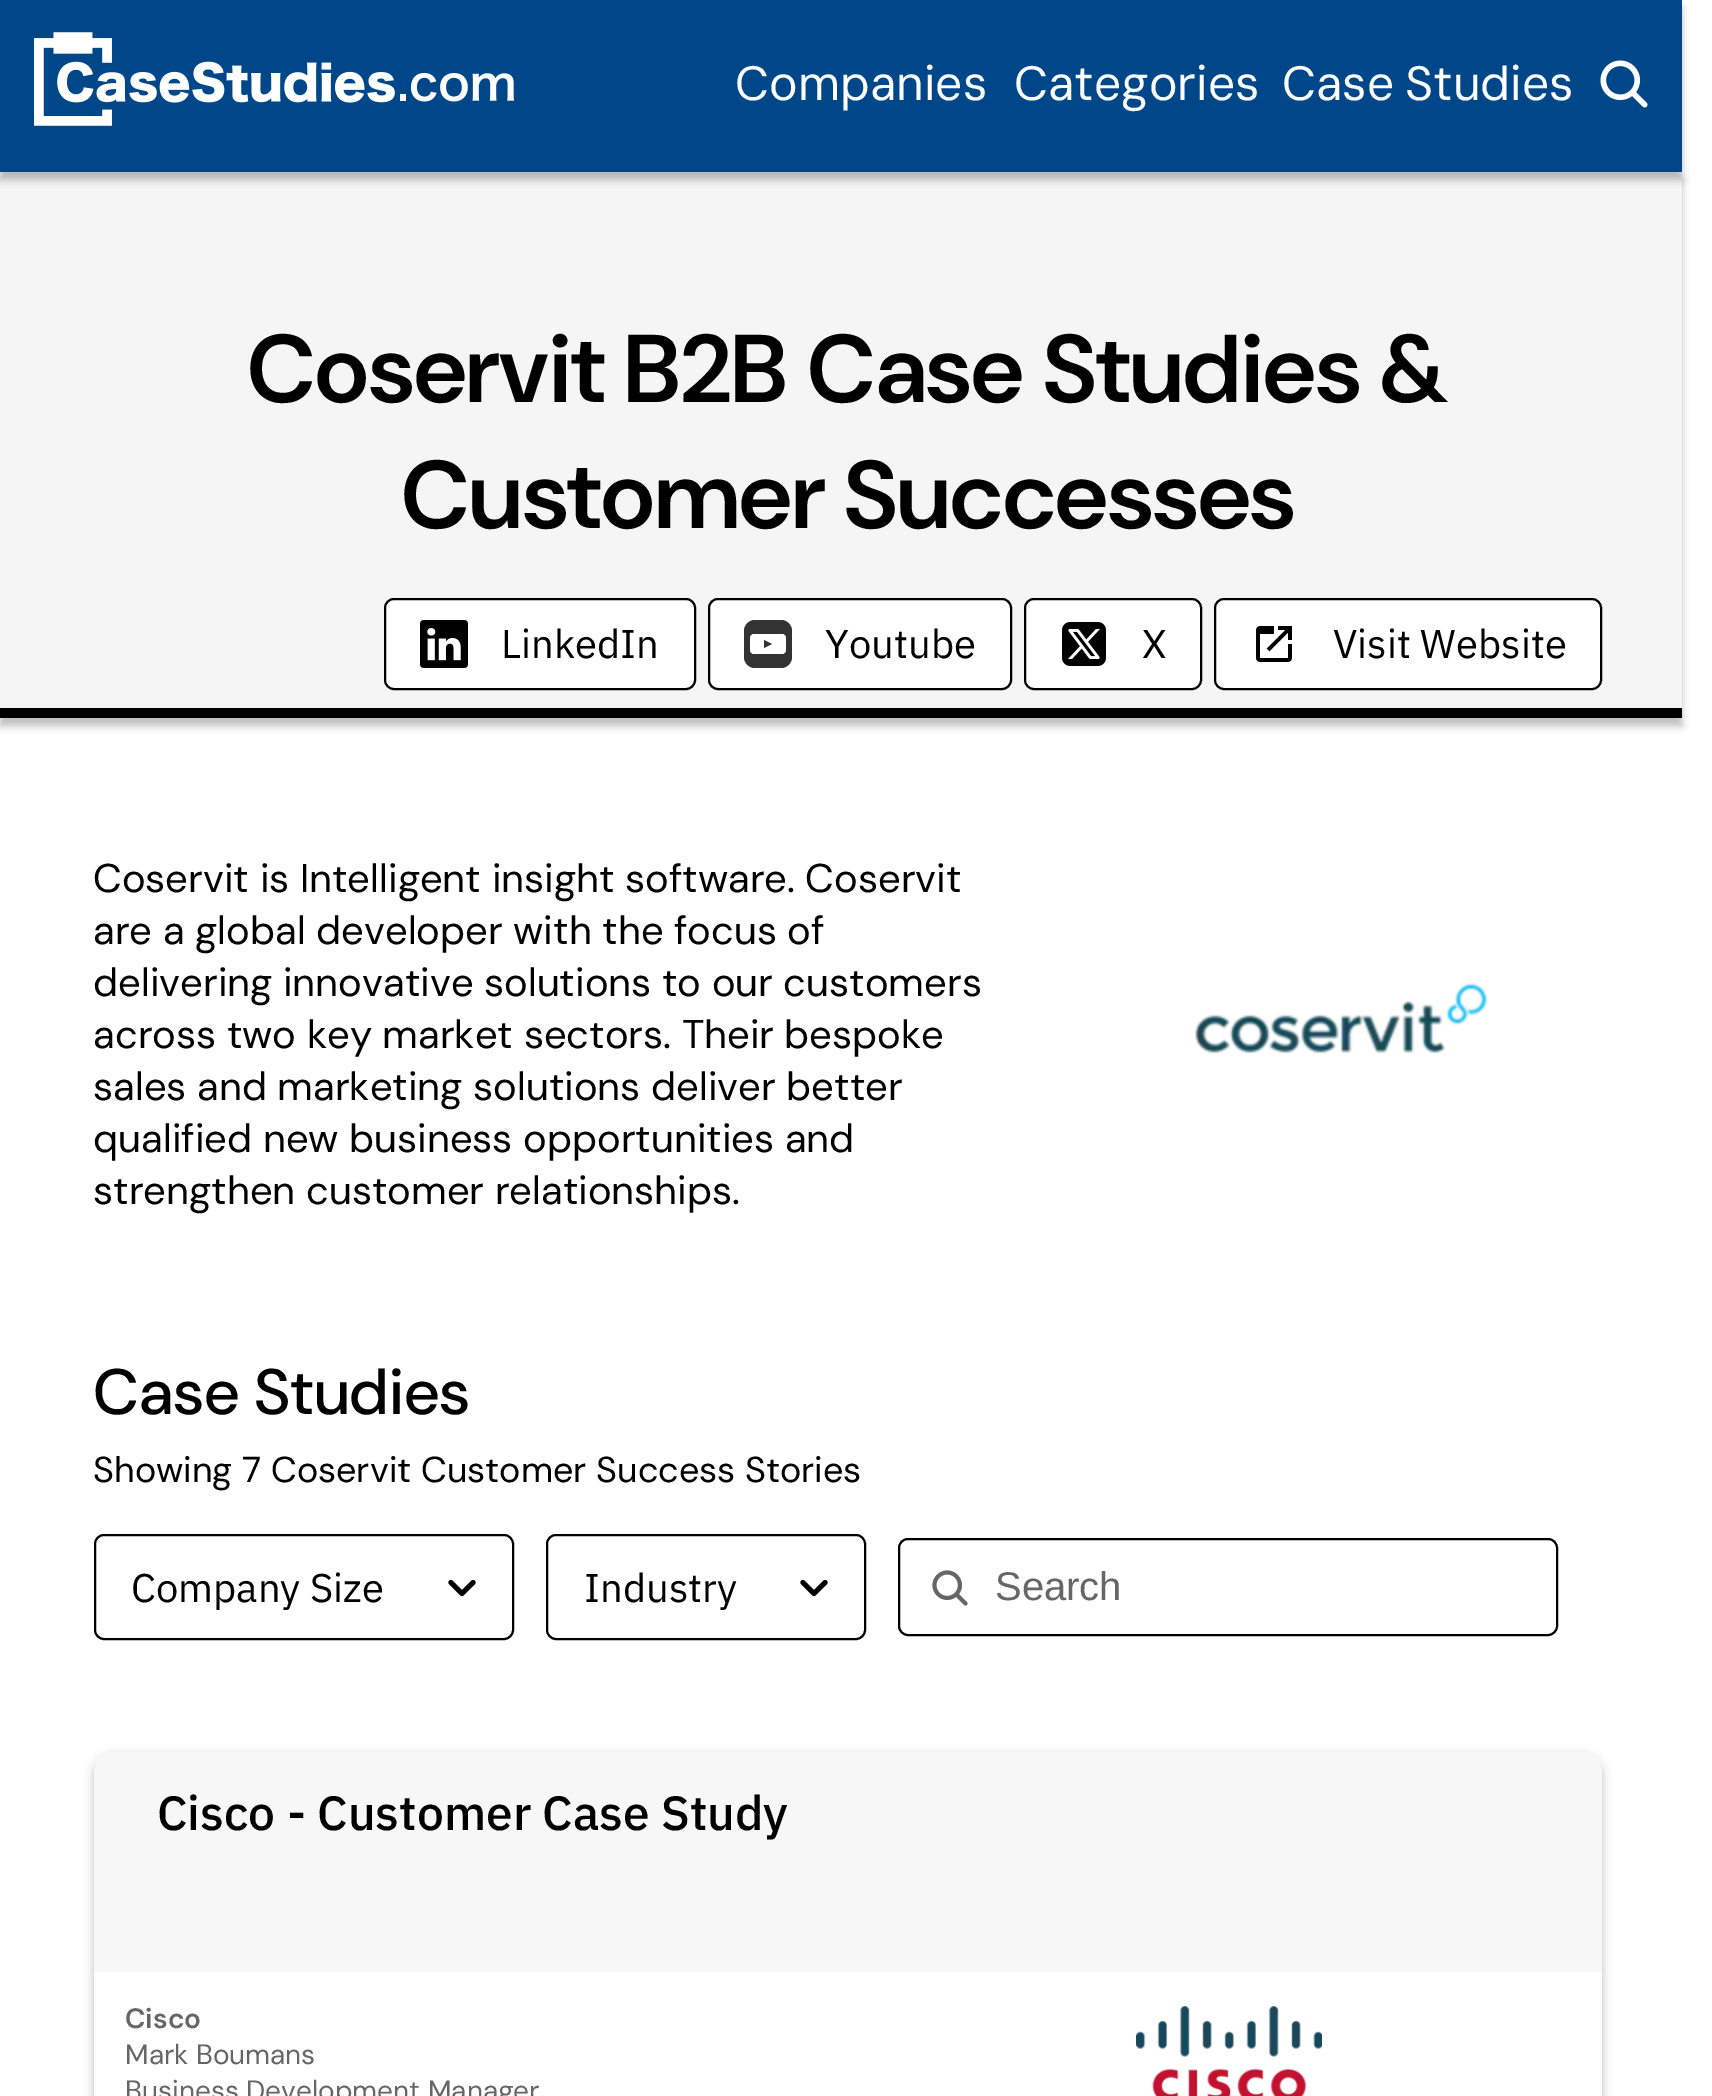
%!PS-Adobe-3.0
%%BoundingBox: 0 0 1712 2096
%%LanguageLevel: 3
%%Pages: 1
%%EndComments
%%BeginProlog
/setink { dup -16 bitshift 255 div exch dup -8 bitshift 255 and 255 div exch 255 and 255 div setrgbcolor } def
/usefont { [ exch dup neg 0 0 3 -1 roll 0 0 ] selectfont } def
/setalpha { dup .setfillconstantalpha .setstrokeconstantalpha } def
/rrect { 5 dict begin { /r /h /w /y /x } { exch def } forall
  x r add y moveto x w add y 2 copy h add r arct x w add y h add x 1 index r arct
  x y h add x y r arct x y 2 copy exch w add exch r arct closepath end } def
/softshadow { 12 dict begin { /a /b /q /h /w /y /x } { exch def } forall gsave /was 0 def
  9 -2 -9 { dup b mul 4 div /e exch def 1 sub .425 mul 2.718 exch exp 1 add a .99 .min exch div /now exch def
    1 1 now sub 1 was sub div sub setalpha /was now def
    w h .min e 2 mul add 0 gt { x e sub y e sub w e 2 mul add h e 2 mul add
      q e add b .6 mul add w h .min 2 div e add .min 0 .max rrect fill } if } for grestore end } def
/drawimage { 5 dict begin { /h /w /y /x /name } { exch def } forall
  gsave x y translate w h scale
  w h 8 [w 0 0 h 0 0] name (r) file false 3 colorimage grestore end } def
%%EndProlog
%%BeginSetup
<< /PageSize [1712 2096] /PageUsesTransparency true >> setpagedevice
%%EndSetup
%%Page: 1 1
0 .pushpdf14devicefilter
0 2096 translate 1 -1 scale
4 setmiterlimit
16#FFFFFF setink
0 0 1712 2096 rectfill
16#000000 setink
0 180 1682 546 0 4 0.25 softshadow
16#F5F5F5 setink
0 172 1682 536 rectfill
16#000000 setink
0 8 1682 172 0 4 0.25 softshadow
16#00478A setink
0 0 1682 172 rectfill
(img1.raw) 34 32 480 94 drawimage
/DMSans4-Regular 48 usefont
16#FFFFFF setink
735 100 moveto (Companies) show
1014 100 moveto (Categories) show
1282 100 moveto -2 0 32 (Case Studies) widthshow
(img2.raw) 1600 60 48 48 drawimage
16#000000 setink
0 708 1682 10 rectfill
/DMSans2-SemiBold 96 usefont
247 402 moveto (Coservit B2B Case Studies &) show
401 528 moveto (Customer Successes) show
16#FFFFFF setink
385 599 310 90 9 rrect gsave fill grestore
16#000000 setink
2 setlinewidth
stroke
(img3.raw) 420 620 48 48 drawimage
/IBMPlexSans-Regular 40 usefont
501 658 moveto (LinkedIn) show
16#FFFFFF setink
709 599 302 90 9 rrect gsave fill grestore
16#000000 setink
stroke
16#333333 setink
744 620 48 48 11 rrect fill
16#FFFFFF setink
750 634 36 20 4 rrect fill
16#333333 setink
764 640 moveto 764 648 lineto 772 644 lineto closepath fill
16#000000 setink
825 658 moveto (Youtube) show
16#FFFFFF setink
1025 599 176 90 9 rrect gsave fill grestore
16#000000 setink
stroke
(img4.raw) 1062 622 44 44 drawimage
1142 658 moveto (X) show
16#FFFFFF setink
1215 599 386 90 9 rrect gsave fill grestore
16#000000 setink
stroke
(img5.raw) 1256 626 36 36 drawimage
1333 658 moveto (Visit Website) show
/DMSans-Regular 40 usefont
[
    [(Coservit is Intelligent insight software. Coservit) 93 892]
    [(are a global developer with the focus of) 93 944]
    [(delivering innovative solutions to our customers) 93 996]
    [(across two key market sectors. Their bespoke) 93 1048]
    [(sales and marketing solutions deliver better) 93 1100]
    [(qualified new business opportunities and) 93 1152]
    [(strengthen customer relationships.) 93 1204]
] { aload pop moveto show } forall
(img6.raw) 1195 983 293 71 drawimage
/DMSans-Medium 64 usefont
93 1414 moveto (Case Studies) show
/DMSans2-Regular 36 usefont
93 1482 moveto (Showing 7 Coservit Customer Success Stories) show
95 1535 418 104 9 rrect stroke
/IBMPlexSans-Regular 40 usefont
131 1602 moveto (Company Size) show
(img7.raw) 448 1579 28 18 drawimage
547 1535 318 104 9 rrect stroke
584 1602 moveto (Industry) show
(img7.raw) 800 1579 28 18 drawimage
899 1539 658 96 9 rrect stroke
(img8.raw) 932 1570 36 36 drawimage
/LiberationSans-Regular 40 usefont
16#666666 setink
995 1600 moveto (Search) show
16#000000 setink
94 1756 1508 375 20 5 0.25 softshadow
16#F7F7F7 setink
94 1752 1508 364 20 rrect fill
/IBMPlexSans-Medium 48 usefont
16#000000 setink
157 1830 moveto (Cisco - Customer Case Study) show
16#FFFFFF setink
94 1972 1508 124 rectfill
/DMSans-SemiBold 28 usefont
16#666666 setink
125 2028 moveto (Cisco) show
/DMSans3-Regular 28 usefont
125 2064 moveto (Mark Boumans) show
125 2100 moveto (Business Development Manager) show
(img9.raw) 1136 2006 186 90 drawimage
.poppdf14devicefilter showpage
%%EOF
